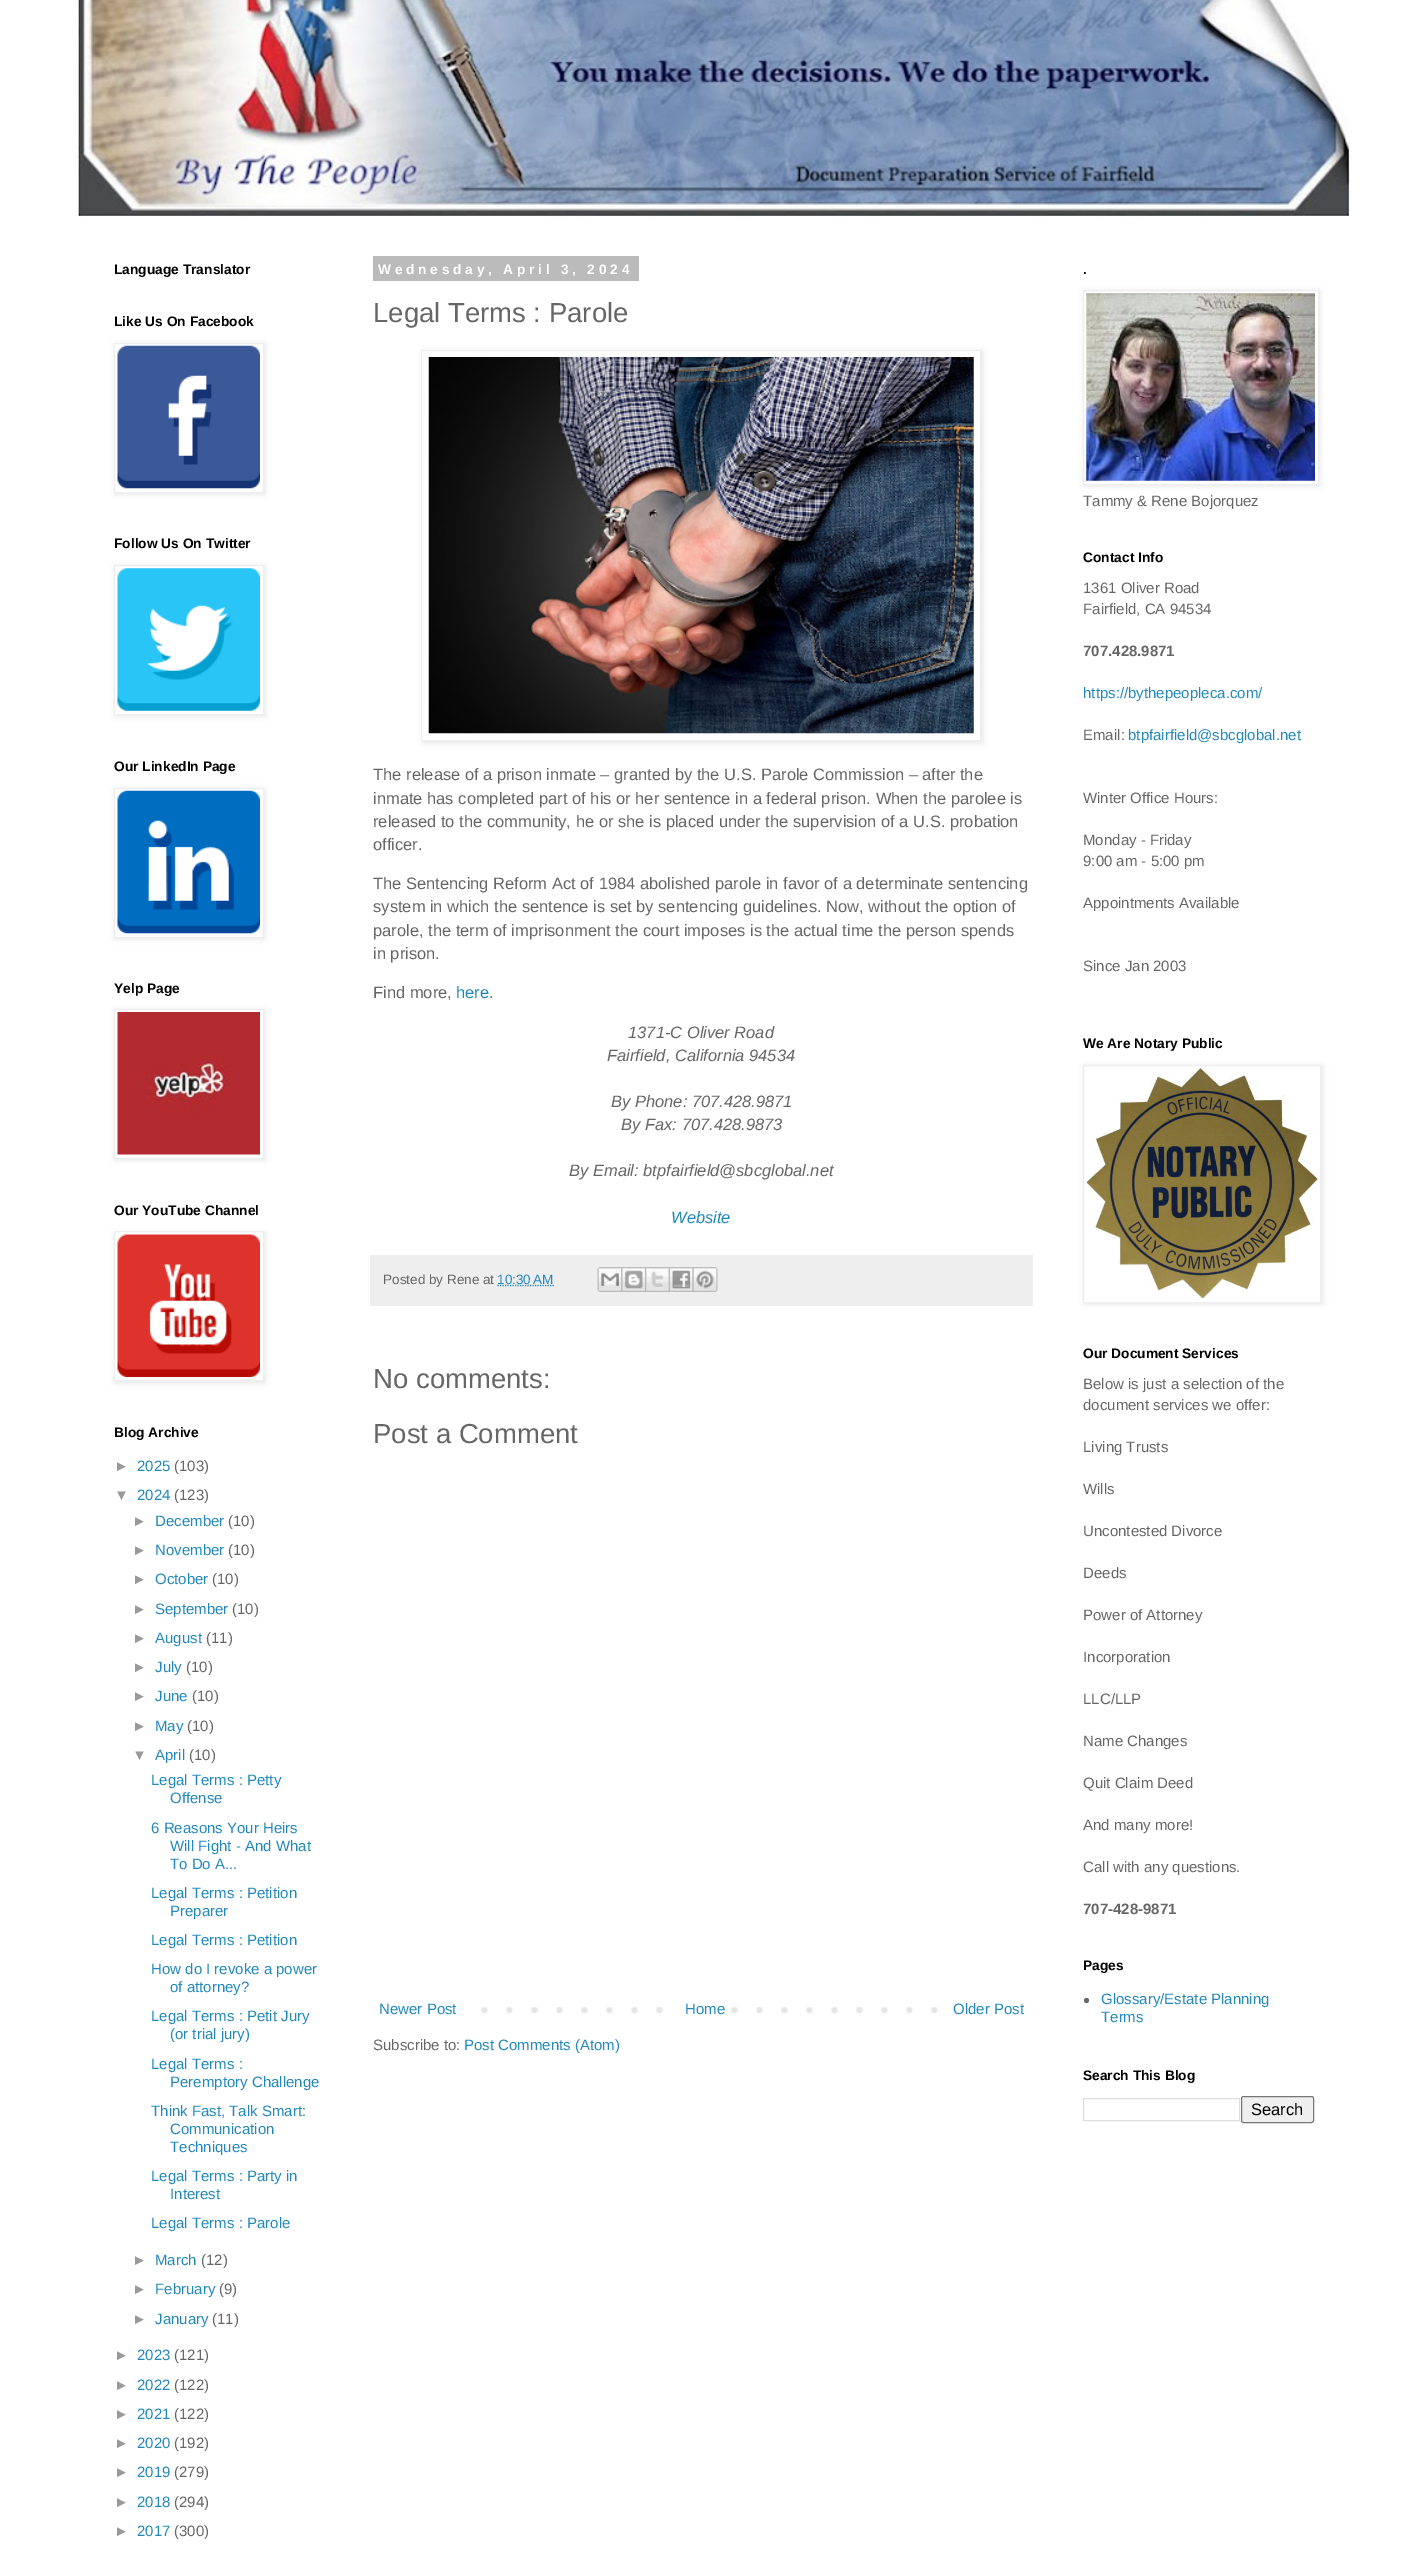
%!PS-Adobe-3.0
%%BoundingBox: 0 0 1427 2558
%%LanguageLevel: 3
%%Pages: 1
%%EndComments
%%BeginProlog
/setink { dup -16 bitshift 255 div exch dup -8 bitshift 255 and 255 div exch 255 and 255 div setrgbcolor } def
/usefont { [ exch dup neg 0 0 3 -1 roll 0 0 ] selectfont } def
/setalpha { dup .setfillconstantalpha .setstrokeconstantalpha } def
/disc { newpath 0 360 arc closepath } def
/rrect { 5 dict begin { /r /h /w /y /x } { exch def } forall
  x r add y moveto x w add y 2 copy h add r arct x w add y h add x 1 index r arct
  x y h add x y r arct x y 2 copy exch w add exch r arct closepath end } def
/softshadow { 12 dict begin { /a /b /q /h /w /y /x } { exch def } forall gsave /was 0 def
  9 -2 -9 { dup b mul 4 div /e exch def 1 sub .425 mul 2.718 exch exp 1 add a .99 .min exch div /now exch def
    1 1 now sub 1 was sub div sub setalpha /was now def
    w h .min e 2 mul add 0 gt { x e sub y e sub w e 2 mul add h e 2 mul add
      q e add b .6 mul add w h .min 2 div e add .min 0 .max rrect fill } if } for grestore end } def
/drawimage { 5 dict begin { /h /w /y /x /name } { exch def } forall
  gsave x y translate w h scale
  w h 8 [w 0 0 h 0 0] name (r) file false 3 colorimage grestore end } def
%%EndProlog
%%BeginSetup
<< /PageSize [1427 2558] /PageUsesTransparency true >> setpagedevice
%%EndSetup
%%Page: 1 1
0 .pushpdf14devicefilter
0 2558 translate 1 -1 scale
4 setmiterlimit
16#FFFFFF setink
0 0 1427 2558 rectfill
(img1.raw) 76 0 1275 217 drawimage
/LiberationSans-Bold 13.75 usefont
16#000000 setink
114 274 moveto (Language Translator) show
114 326 moveto (Like Us On Facebook) show
115 344 150 150 0 3 0.1 softshadow
16#FFFFFF setink
114.5 343.5 moveto 263.5 343.5 lineto 263.5 492.5 lineto 114.5 492.5 lineto closepath gsave fill grestore
16#EEEEEE setink
stroke
(img2.raw) 117 345 143 144 drawimage
16#000000 setink
114 548 moveto (Follow Us On Twitter) show
115 566 150 150 0 3 0.1 softshadow
16#FFFFFF setink
114.5 565.5 moveto 263.5 565.5 lineto 263.5 714.5 lineto 114.5 714.5 lineto closepath gsave fill grestore
16#EEEEEE setink
stroke
(img3.raw) 117 568 143 143 drawimage
16#000000 setink
114 771 moveto (Our LinkedIn Page) show
115 789 150 150 0 3 0.1 softshadow
16#FFFFFF setink
114.5 788.5 moveto 263.5 788.5 lineto 263.5 937.5 lineto 114.5 937.5 lineto closepath gsave fill grestore
16#EEEEEE setink
stroke
(img4.raw) 117 790 143 144 drawimage
16#000000 setink
114 993 moveto (Yelp Page) show
115 1010 150 150 0 3 0.1 softshadow
16#FFFFFF setink
114.5 1009.5 moveto 263.5 1009.5 lineto 263.5 1158.5 lineto 114.5 1158.5 lineto closepath gsave fill grestore
16#EEEEEE setink
stroke
(img5.raw) 117 1012 143 143 drawimage
16#000000 setink
114 1215 moveto (Our YouTube Channel) show
115 1233 150 150 0 3 0.1 softshadow
16#FFFFFF setink
114.5 1231.5 moveto 263.5 1231.5 lineto 263.5 1380.5 lineto 114.5 1380.5 lineto closepath gsave fill grestore
16#EEEEEE setink
stroke
(img6.raw) 117 1234 143 143 drawimage
16#000000 setink
114 1437 moveto (Blog Archive) show
/LiberationSans-Regular 15 usefont
16#999999 setink
114 1471 moveto (►) show
16#2288BB setink
137 1471 moveto (2025) show
16#666666 setink
174 1471 moveto (\(103\)) show
16#999999 setink
114 1500 moveto (▼) show
16#2288BB setink
137 1500 moveto (2024) show
16#666666 setink
174 1500 moveto (\(123\)) show
16#999999 setink
132 1526 moveto (►) show
16#2288BB setink
155 1526 moveto (December) show
16#666666 setink
228 1526 moveto (\(10\)) show
16#999999 setink
132 1555 moveto (►) show
16#2288BB setink
155 1555 moveto (November) show
16#666666 setink
228 1555 moveto (\(10\)) show
16#999999 setink
132 1584 moveto (►) show
16#2288BB setink
155 1584 moveto (October) show
16#666666 setink
212 1584 moveto (\(10\)) show
16#999999 setink
132 1614 moveto (►) show
16#2288BB setink
155 1614 moveto (September) show
16#666666 setink
232 1614 moveto (\(10\)) show
16#999999 setink
132 1643 moveto (►) show
16#2288BB setink
155 1643 moveto (August) show
16#666666 setink
206 1643 moveto (\(11\)) show
16#999999 setink
132 1672 moveto (►) show
16#2288BB setink
155 1672 moveto (July) show
16#666666 setink
186 1672 moveto (\(10\)) show
16#999999 setink
132 1701 moveto (►) show
16#2288BB setink
155 1701 moveto (June) show
16#666666 setink
192 1701 moveto (\(10\)) show
16#999999 setink
132 1731 moveto (►) show
16#2288BB setink
155 1731 moveto (May) show
16#666666 setink
187 1731 moveto (\(10\)) show
16#999999 setink
132 1760 moveto (▼) show
16#2288BB setink
155 1760 moveto (April) show
16#666666 setink
189 1760 moveto (\(10\)) show
16#2288BB setink
[
    [(Legal Terms : Petty) 151 1785]
    [(Offense) 170 1803]
    [(6 Reasons Your Heirs) 151 1833]
    [(Will Fight - And What) 170 1851]
    [(To Do A...) 170 1869]
    [(Legal Terms : Petition) 151 1898]
    [(Preparer) 170 1916]
    [(Legal Terms : Petition) 151 1945]
    [(How do I revoke a power) 151 1974]
    [(of attorney?) 170 1992]
    [(Legal Terms : Petit Jury) 151 2021]
    [(\(or trial jury\)) 170 2039]
    [(Legal Terms :) 151 2069]
    [(Peremptory Challenge) 170 2087]
    [(Think Fast, Talk Smart:) 151 2116]
    [(Communication) 170 2134]
    [(Techniques) 170 2152]
    [(Legal Terms : Party in) 151 2181]
    [(Interest) 170 2199]
    [(Legal Terms : Parole) 151 2228]
] { aload pop moveto show } forall
16#999999 setink
132 2265 moveto (►) show
16#2288BB setink
155 2265 moveto (March) show
16#666666 setink
201 2265 moveto (\(12\)) show
16#999999 setink
132 2294 moveto (►) show
16#2288BB setink
155 2294 moveto (February) show
16#666666 setink
219 2294 moveto (\(9\)) show
16#999999 setink
132 2324 moveto (►) show
16#2288BB setink
155 2324 moveto (January) show
16#666666 setink
212 2324 moveto (\(11\)) show
16#999999 setink
114 2360 moveto (►) show
16#2288BB setink
137 2360 moveto (2023) show
16#666666 setink
174 2360 moveto (\(121\)) show
16#999999 setink
114 2390 moveto (►) show
16#2288BB setink
137 2390 moveto (2022) show
16#666666 setink
174 2390 moveto (\(122\)) show
16#999999 setink
114 2419 moveto (►) show
16#2288BB setink
137 2419 moveto (2021) show
16#666666 setink
174 2419 moveto (\(122\)) show
16#999999 setink
114 2448 moveto (►) show
16#2288BB setink
137 2448 moveto (2020) show
16#666666 setink
174 2448 moveto (\(192\)) show
16#999999 setink
114 2477 moveto (►) show
16#2288BB setink
137 2477 moveto (2019) show
16#666666 setink
174 2477 moveto (\(279\)) show
16#999999 setink
114 2507 moveto (►) show
16#2288BB setink
137 2507 moveto (2018) show
16#666666 setink
174 2507 moveto (\(294\)) show
16#999999 setink
114 2536 moveto (►) show
16#2288BB setink
137 2536 moveto (2017) show
16#666666 setink
174 2536 moveto (\(300\)) show
16#BBBBBB setink
373 256 266 25 rectfill
/LiberationSans-Bold 13.75 usefont
16#FFFFFF setink
378 274 moveto 3.75 0 (Wednesday, April 3, 2024) ashow
/LiberationSans-Regular 27.5 usefont
16#666666 setink
373 322 moveto (Legal Terms : Parole) show
16#000000 setink
423 351 560 392 0 3 0.1 softshadow
16#FFFFFF setink
421.5 350.5 moveto 980.5 350.5 lineto 980.5 740.5 lineto 421.5 740.5 lineto closepath gsave fill grestore
16#EEEEEE setink
stroke
(img7.raw) 428 357 546 377 drawimage
/LiberationSans-Regular 16.5 usefont
16#666666 setink
[
    [(The release of a prison inmate – granted by the U.S. Parole Commission – after the) 373 780]
    [(inmate has completed part of his or her sentence in a federal prison. When the parolee is) 373 804]
    [(released to the community, he or she is placed under the supervision of a U.S. probation) 373 827]
    [(officer.) 373 850]
    [(The Sentencing Reform Act of 1984 abolished parole in favor of a determinate sentencing) 373 889]
    [(system in which the sentence is set by sentencing guidelines. Now, without the option of) 373 912]
    [(parole, the term of imprisonment the court imposes is the actual time the person spends) 373 936]
    [(in prison.) 373 959]
    [(Find more,) 373 998]
] { aload pop moveto show } forall
16#2288BB setink
456 998 moveto (here) show
16#666666 setink
489 998 moveto (.) show
/LiberationSans-Italic 16.5 usefont
[
    [(1371-C Oliver Road) 628 1038]
    [(Fairfield, California 94534) 607 1061]
    [(By Phone: 707.428.9871) 611 1107]
    [(By Fax: 707.428.9873) 621 1130]
    [(By Email: btpfairfield@sbcglobal.net) 569 1176]
] { aload pop moveto show } forall
16#2288BB setink
671 1223 moveto (Website) show
16#EEEEEE setink
370 1255 663 51 rectfill
/LiberationSans-Regular 13.5 usefont
16#666666 setink
383 1284 moveto (Posted by Rene at) show
16#2288BB setink
1.2 setlinewidth
[1.25 1.25] 0 setdash
497.5 1285.5 moveto 554 1285.5 lineto stroke
497 1284 moveto (10:30 AM) show
(img8.raw) 597 1267 25 25 drawimage
(img9.raw) 621 1267 24 25 drawimage
(img10.raw) 645 1267 24 25 drawimage
(img11.raw) 668 1267 25 25 drawimage
(img12.raw) 692 1267 26 25 drawimage
/LiberationSans-Regular 27.5 usefont
16#666666 setink
373 1388 moveto (No comments:) show
373 1443 moveto (Post a Comment) show
(img13.raw) 481 2007 457 7 drawimage
/LiberationSans-Regular 15 usefont
16#2288BB setink
379 2014 moveto (Newer Post) show
16#FFFFFF setink
681 2007 32 7 rectfill
16#2288BB setink
685 2014 moveto (Home) show
953 2014 moveto (Older Post) show
16#666666 setink
373 2050 moveto (Subscribe to:) show
16#2288BB setink
464 2050 moveto (Post Comments \(Atom\)) show
/LiberationSans-Bold 13.75 usefont
16#000000 setink
1083 274 moveto (.) show
1084 291 236 195 0 3 0.1 softshadow
16#FFFFFF setink
1083.5 290.5 moveto 1318.5 290.5 lineto 1318.5 484.5 lineto 1083.5 484.5 lineto closepath gsave fill grestore
16#EEEEEE setink
1 setlinewidth
[] 0 setdash
stroke
(img14.raw) 1086 293 229 188 drawimage
/LiberationSans-Regular 15 usefont
16#666666 setink
1083 506 moveto (Tammy & Rene Bojorquez) show
/LiberationSans-Bold 13.75 usefont
16#000000 setink
1083 562 moveto (Contact Info) show
/LiberationSans-Regular 15 usefont
16#666666 setink
1083 593 moveto (1361 Oliver Road) show
1083 614 moveto (Fairfield, CA 94534) show
/LiberationSans-Bold 15 usefont
1083 656 moveto (707.428.9871) show
/LiberationSans-Regular 15 usefont
16#2288BB setink
1083 698 moveto (https://bythepeopleca.com/) show
16#666666 setink
1083 740 moveto (Email:) show
16#2288BB setink
1128 740 moveto (btpfairfield@sbcglobal.net) show
16#666666 setink
[
    [(Winter Office Hours:) 1083 803]
    [(Monday - Friday) 1083 845]
    [(9:00 am - 5:00 pm) 1083 866]
    [(Appointments Available) 1083 908]
    [(Since Jan 2003) 1083 971]
] { aload pop moveto show } forall
/LiberationSans-Bold 13.75 usefont
16#000000 setink
1083 1048 moveto (We Are Notary Public) show
1084 1066 239 238 0 3 0.1 softshadow
16#FFFFFF setink
1083.5 1065.5 moveto 1320.5 1065.5 lineto 1320.5 1302.5 lineto 1083.5 1302.5 lineto closepath gsave fill grestore
16#EEEEEE setink
stroke
(img15.raw) 1086 1068 232 231 drawimage
16#000000 setink
1083 1358 moveto (Our Document Services) show
/LiberationSans-Regular 15 usefont
16#666666 setink
[
    [(Below is just a selection of the) 1083 1389]
    [(document services we offer:) 1083 1410]
    [(Living Trusts) 1083 1452]
    [(Wills) 1083 1494]
    [(Uncontested Divorce) 1083 1536]
    [(Deeds) 1083 1578]
    [(Power of Attorney) 1083 1620]
    [(Incorporation) 1083 1662]
    [(LLC/LLP) 1083 1704]
    [(Name Changes) 1083 1746]
    [(Quit Claim Deed) 1083 1788]
    [(And many more!) 1083 1830]
    [(Call with any questions.) 1083 1872]
] { aload pop moveto show } forall
/LiberationSans-Bold 15 usefont
1083 1914 moveto (707-428-9871) show
/LiberationSans-Bold 13.75 usefont
16#000000 setink
1083 1970 moveto (Pages) show
16#666666 setink
1086.5 2000.5 2.5 disc fill
/LiberationSans-Regular 15 usefont
16#2288BB setink
1101 2004 moveto (Glossary/Estate Planning) show
1101 2022 moveto (Terms) show
/LiberationSans-Bold 13.75 usefont
16#000000 setink
1083 2080 moveto (Search This Blog) show
16#DDDDDD setink
1083.5 2098.5 156 22 rectstroke
16#EFEFEF setink
1241.5 2096.5 72 26 2 rrect gsave fill grestore
16#767676 setink
stroke
/LiberationSans-Regular 16.5 usefont
16#000000 setink
1251 2115 moveto (Search) show
.poppdf14devicefilter showpage
%%EOF
